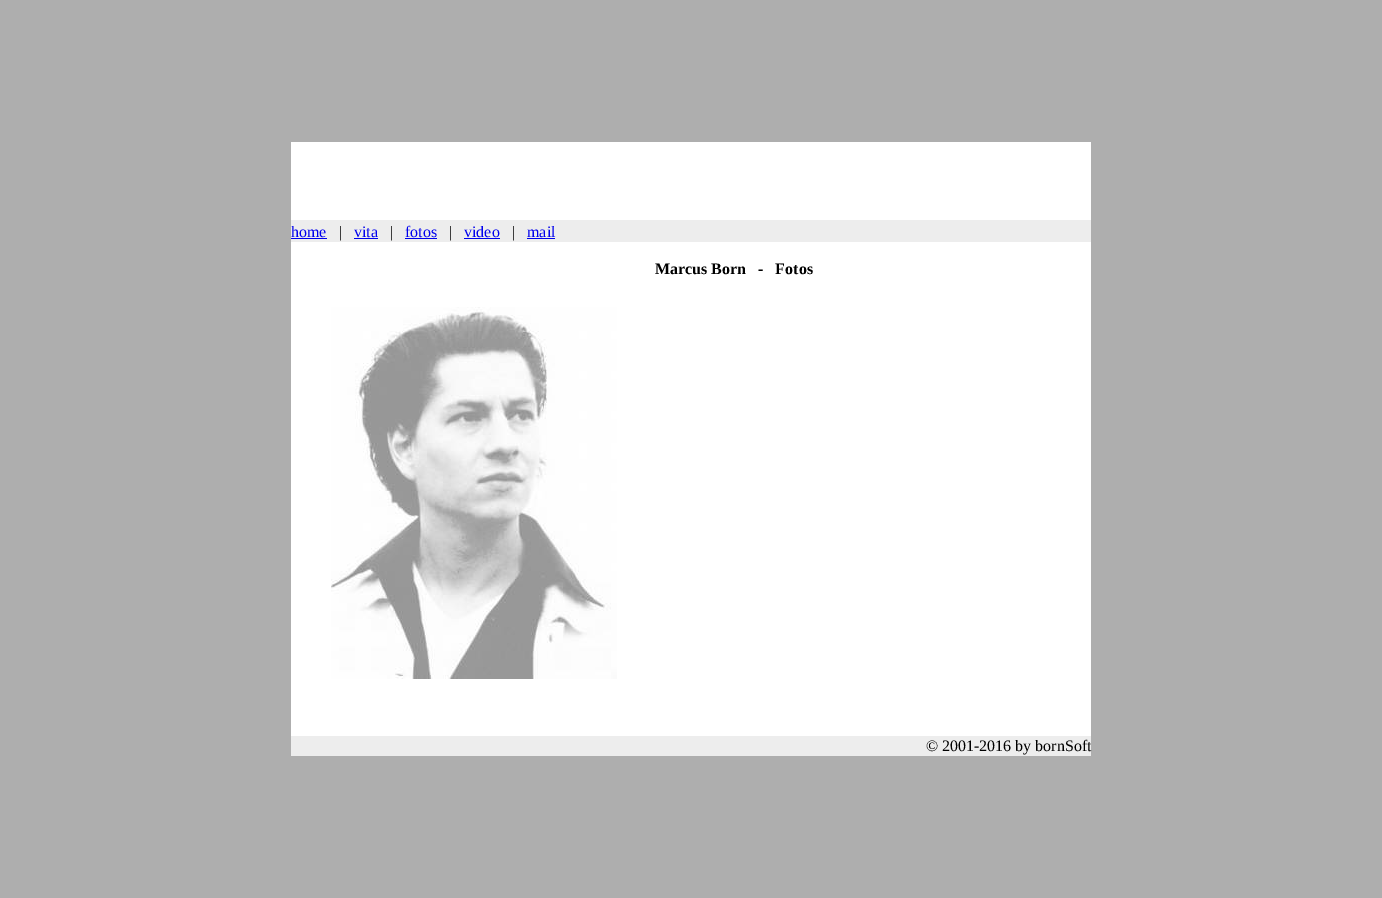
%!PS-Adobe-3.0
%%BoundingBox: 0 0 1382 898
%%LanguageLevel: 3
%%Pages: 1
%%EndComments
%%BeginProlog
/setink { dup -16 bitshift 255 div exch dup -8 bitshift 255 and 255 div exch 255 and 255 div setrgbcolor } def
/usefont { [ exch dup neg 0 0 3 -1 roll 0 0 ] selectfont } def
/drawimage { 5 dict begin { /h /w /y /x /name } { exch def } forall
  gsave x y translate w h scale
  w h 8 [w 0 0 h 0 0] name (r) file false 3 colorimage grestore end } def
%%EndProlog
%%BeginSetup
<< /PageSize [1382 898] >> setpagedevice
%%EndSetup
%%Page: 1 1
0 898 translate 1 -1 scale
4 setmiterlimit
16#AEAEAE setink
0 0 1382 898 rectfill
16#FFFFFF setink
291 142 800 594 rectfill
16#EDEDED setink
291 220 800 22 rectfill
/LiberationSerif-Regular 16 usefont
16#0000EE setink
291 237 moveto (home) show
291 238 36 1 rectfill
16#000000 setink
339 237 moveto (|) show
16#0000EE setink
354 237 moveto (vita) show
354 238 24 1 rectfill
16#000000 setink
390 237 moveto (|) show
16#0000EE setink
405 237 moveto (fotos) show
405 238 32 1 rectfill
16#000000 setink
449 237 moveto (|) show
16#0000EE setink
464 237 moveto (video) show
464 238 36 1 rectfill
16#000000 setink
512 237 moveto (|) show
16#0000EE setink
527 237 moveto (mail) show
527 238 28 1 rectfill
/LiberationSerif-Bold 16 usefont
16#000000 setink
655 274 moveto (Marcus Born   -   Fotos) show
(img1.raw) 331 307 286 372 drawimage
16#EDEDED setink
291 736 800 20 rectfill
/LiberationSerif-Regular 16 usefont
16#000000 setink
926 751 moveto (© 2001-2016 by bornSoft) show
showpage
%%EOF
